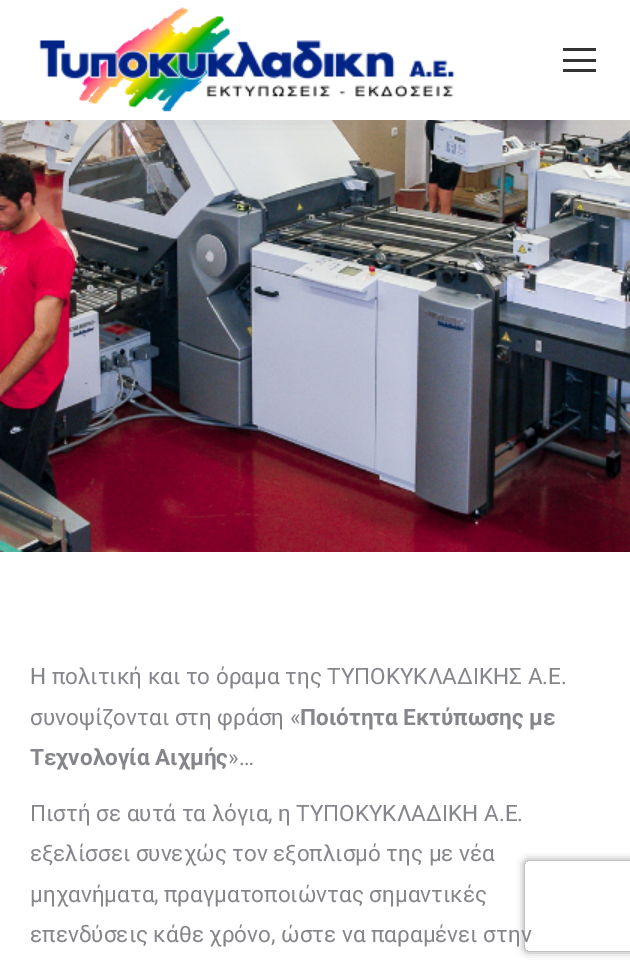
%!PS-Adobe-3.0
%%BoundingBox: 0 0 630 972
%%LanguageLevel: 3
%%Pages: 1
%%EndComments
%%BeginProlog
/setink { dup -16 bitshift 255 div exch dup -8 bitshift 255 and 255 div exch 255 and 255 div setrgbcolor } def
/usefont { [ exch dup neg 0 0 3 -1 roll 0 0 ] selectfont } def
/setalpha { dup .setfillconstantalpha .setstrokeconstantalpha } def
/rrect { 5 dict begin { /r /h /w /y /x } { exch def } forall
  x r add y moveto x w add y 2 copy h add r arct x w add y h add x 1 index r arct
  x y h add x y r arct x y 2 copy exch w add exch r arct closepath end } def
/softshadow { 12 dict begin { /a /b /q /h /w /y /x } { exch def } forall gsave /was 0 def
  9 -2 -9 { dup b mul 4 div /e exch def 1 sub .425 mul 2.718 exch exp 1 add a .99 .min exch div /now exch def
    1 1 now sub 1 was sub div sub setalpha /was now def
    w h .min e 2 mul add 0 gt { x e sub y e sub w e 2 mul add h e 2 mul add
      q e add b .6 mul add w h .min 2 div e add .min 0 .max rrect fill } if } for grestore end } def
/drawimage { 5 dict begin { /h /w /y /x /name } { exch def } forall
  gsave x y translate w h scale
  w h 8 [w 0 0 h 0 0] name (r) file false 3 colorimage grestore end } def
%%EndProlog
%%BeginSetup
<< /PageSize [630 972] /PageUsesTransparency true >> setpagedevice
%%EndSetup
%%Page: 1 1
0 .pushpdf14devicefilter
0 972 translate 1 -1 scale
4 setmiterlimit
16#FFFFFF setink
0 0 630 972 rectfill
(img2.raw) 0 120 630 432 drawimage
16#000000 setink
-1 -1 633 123 0 11 0.07 softshadow
16#FFFFFF setink
0 0 630 120 rectfill
(img1.raw) 39 7 416 105 drawimage
[
    [563 48 33 3 16#333333]
    [563 59 33 3 16#333333]
    [563 69 33 3 16#333333]
] { aload pop setink rectfill } forall
/Roboto-Regular 22.5 usefont
16#85868C setink
30 684 moveto (Η πολιτική και το όραμα της ΤΥΠΟΚΥΚΛΑΔΙΚΗΣ Α) show
/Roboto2-Regular 22.5 usefont
542 684 moveto (.) show
/Roboto-Regular 22.5 usefont
548 684 moveto (Ε) show
/Roboto2-Regular 22.5 usefont
561 684 moveto (.) show
/Roboto-Regular 22.5 usefont
30 725 moveto (συνοψίζονται στη φράση) show
/Roboto2-Regular 22.5 usefont
290 725 moveto («) show
/Roboto-Bold 22.5 usefont
300 725 moveto (Ποιότητα Εκτύπωσης με) show
30 765 moveto (Τεχνολογία Αιχμής) show
/Roboto2-Regular 22.5 usefont
228 765 moveto (»…) show
/Roboto-Regular 22.5 usefont
30 821 moveto (Πιστή σε αυτά τα λόγια) show
/Roboto2-Regular 22.5 usefont
268 821 moveto (,) show
/Roboto-Regular 22.5 usefont
278 821 moveto (η ΤΥΠΟΚΥΚΛΑΔΙΚΗ Α) show
/Roboto2-Regular 22.5 usefont
499 821 moveto (.) show
/Roboto-Regular 22.5 usefont
505 821 moveto (Ε) show
/Roboto2-Regular 22.5 usefont
517 821 moveto (.) show
/Roboto-Regular 22.5 usefont
30 861 moveto (εξελίσσει συνεχώς τον εξοπλισμό της με νέα) show
30 902 moveto (μηχανήματα) show
/Roboto2-Regular 22.5 usefont
154 902 moveto (,) show
/Roboto-Regular 22.5 usefont
164 902 moveto (πραγματοποιώντας σημαντικές) show
30 942 moveto (επενδύσεις κάθε χρόνο) show
/Roboto2-Regular 22.5 usefont
271 942 moveto (,) show
/Roboto-Regular 22.5 usefont
281 942 moveto (ώστε να παραμένει στην) show
gsave
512 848 moveto 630 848 lineto 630 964 lineto 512 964 lineto closepath 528 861 moveto 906 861 lineto 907.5 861 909 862.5 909 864 curveto 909 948 lineto 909 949.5 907.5 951 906 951 curveto 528 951 lineto 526.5 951 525 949.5 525 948 curveto 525 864 lineto 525 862.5 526.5 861 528 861 curveto closepath eoclip newpath
16#808080 setink
525 861 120 90 3 4 1 softshadow
grestore
.poppdf14devicefilter showpage
%%EOF
